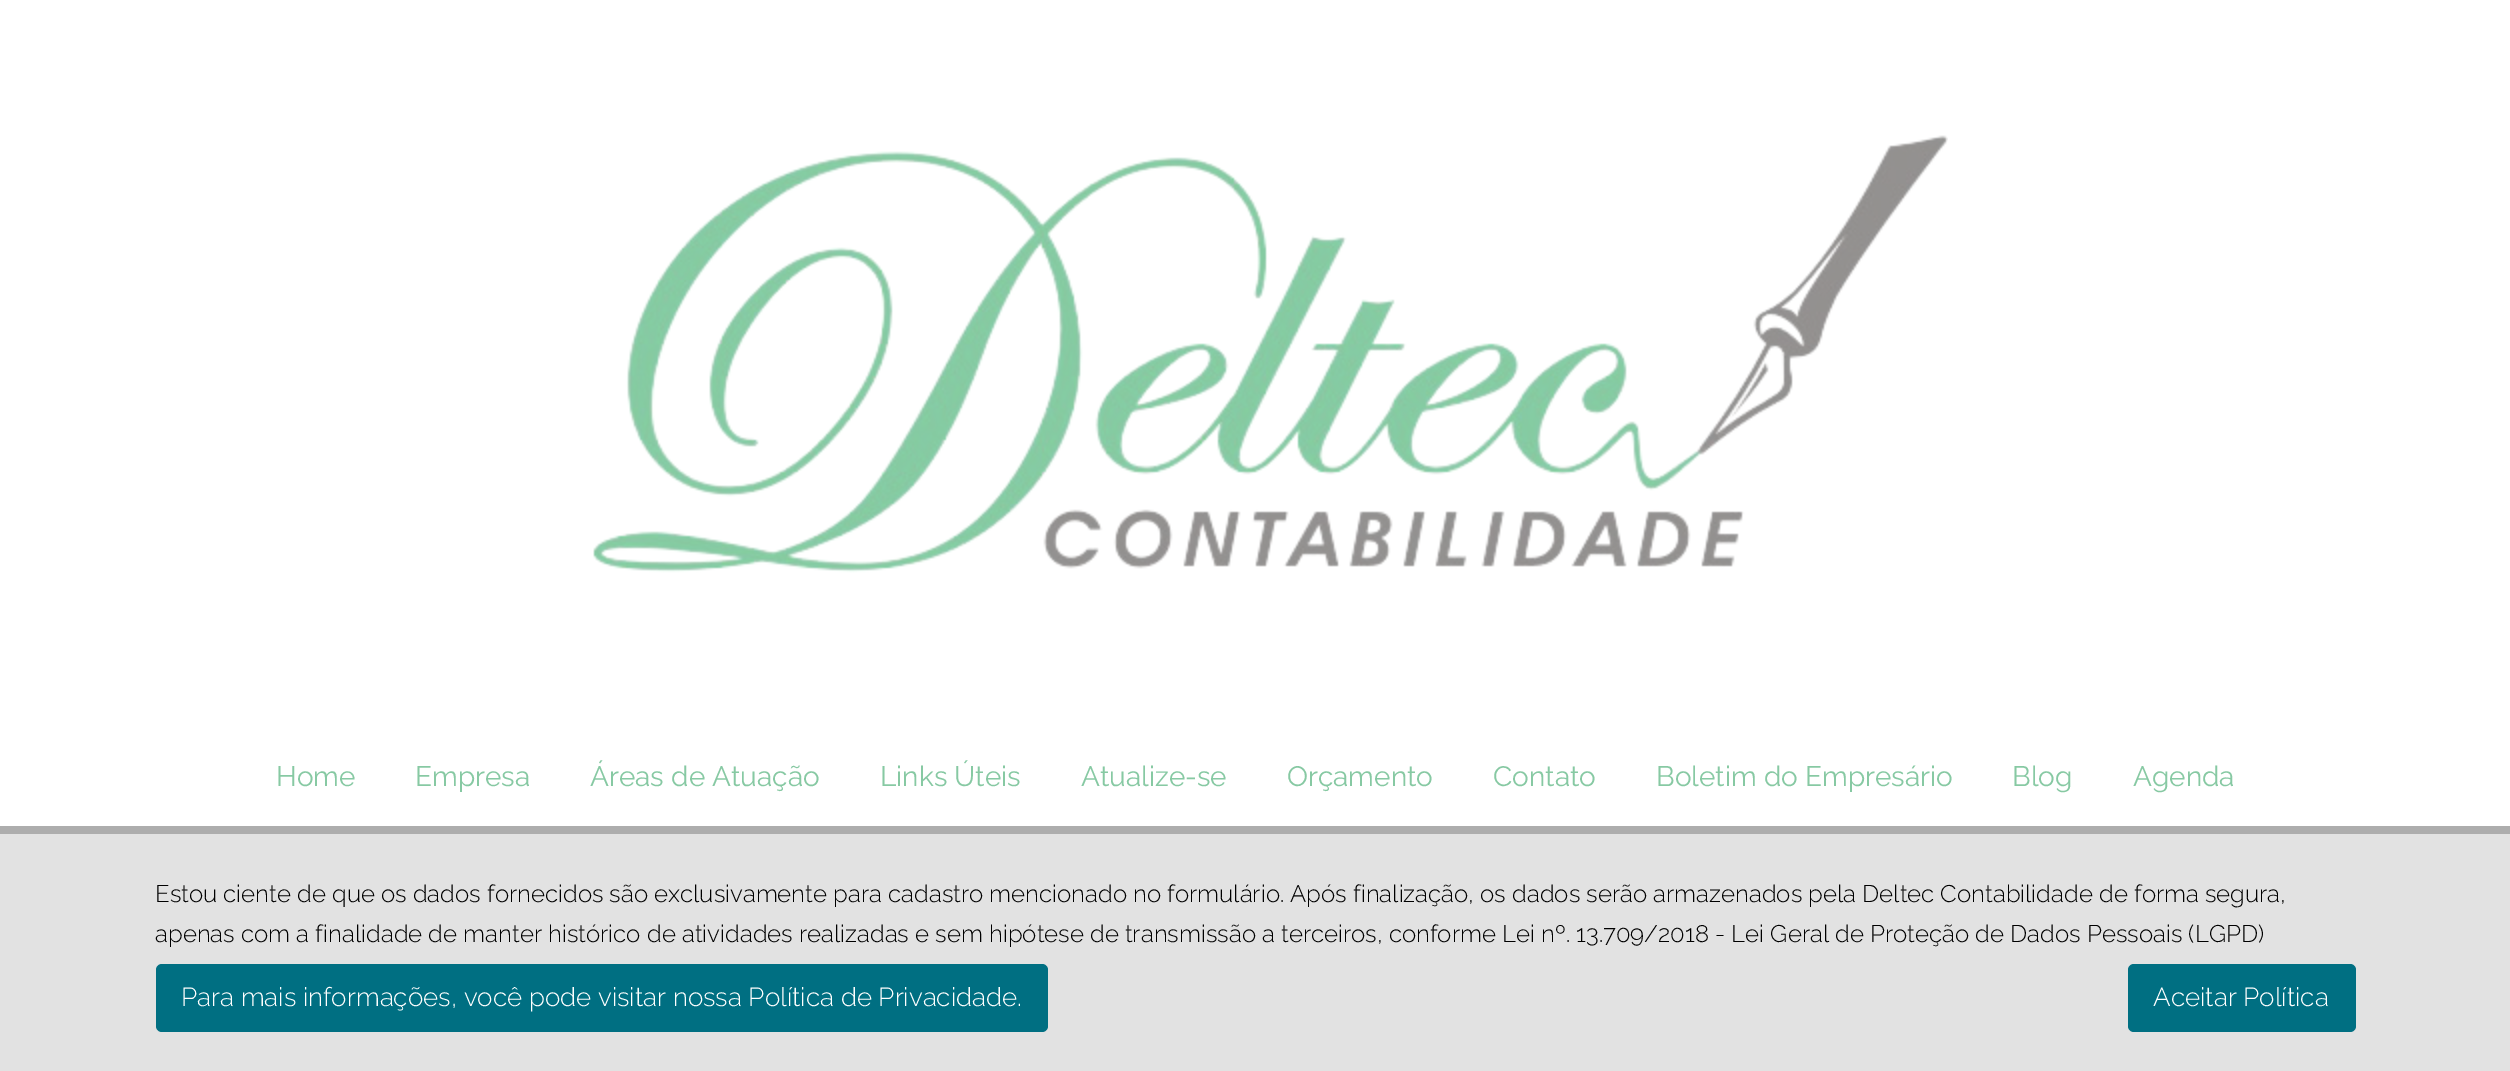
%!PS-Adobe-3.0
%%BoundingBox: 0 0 2510 1071
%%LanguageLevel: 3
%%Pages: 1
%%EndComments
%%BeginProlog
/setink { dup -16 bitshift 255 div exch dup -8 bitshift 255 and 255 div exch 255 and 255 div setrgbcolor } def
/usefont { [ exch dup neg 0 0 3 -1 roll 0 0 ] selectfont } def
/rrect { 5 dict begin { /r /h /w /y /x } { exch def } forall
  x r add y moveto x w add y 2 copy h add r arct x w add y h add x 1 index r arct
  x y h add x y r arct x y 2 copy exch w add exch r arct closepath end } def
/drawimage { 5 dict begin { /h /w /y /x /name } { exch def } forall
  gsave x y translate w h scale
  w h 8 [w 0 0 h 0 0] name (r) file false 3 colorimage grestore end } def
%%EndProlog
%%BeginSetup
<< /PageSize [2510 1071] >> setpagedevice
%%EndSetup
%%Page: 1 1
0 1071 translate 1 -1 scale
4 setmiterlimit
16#FFFFFF setink
0 0 2510 1071 rectfill
(img1.raw) 593 135 1355 438 drawimage
/Raleway-Regular 28 usefont
16#87C9A3 setink
[
    [(Home) 276 786]
    [(Empresa) 415 786]
    [(Áreas de Atuação) 590 786]
    [(Links Úteis) 880 786]
    [(Atualize-se) 1081 786]
    [(Orçamento) 1287 786]
    [(Contato) 1493 786]
    [(Boletim do Empresário) 1656 786]
    [(Blog) 2012 786]
    [(Agenda) 2133 786]
] { aload pop moveto show } forall
16#ADADAD setink
0 826 2510 8 rectfill
16#E2E2E2 setink
0 834 2510 237 rectfill
/Raleway-Light 24 usefont
16#000000 setink
155 902 moveto (Estou ciente de que os dados fornecidos são exclusivamente para cadastro mencionado no formulário. Após finalização, os dados serão armazenados pela Deltec Contabilidade de forma segura,) show
155 942 moveto (apenas com a finalidade de manter histórico de atividades realizadas e sem hipótese de transmissão a terceiros, conforme Lei nº. 13.709/2018 - Lei Geral de Proteção de Dados Pessoais \(LGPD\)) show
16#006F82 setink
156 964 892 68 6 rrect fill
/Raleway-Light 26 usefont
16#FFFFFF setink
181 1006 moveto (Para mais informações, você pode visitar nossa Política de Privacidade.) show
16#006F82 setink
2128 964 228 68 6 rrect fill
16#FFFFFF setink
2153 1006 moveto (Aceitar Política) show
showpage
%%EOF
